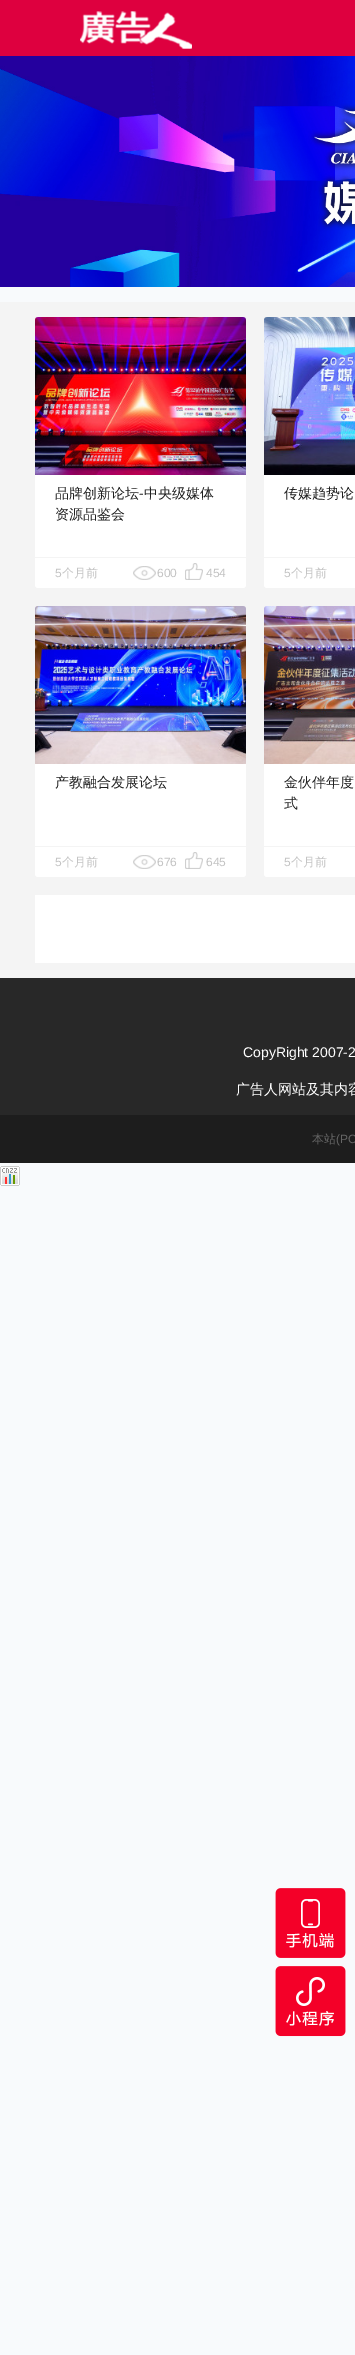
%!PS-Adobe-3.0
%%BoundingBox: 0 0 355 2355
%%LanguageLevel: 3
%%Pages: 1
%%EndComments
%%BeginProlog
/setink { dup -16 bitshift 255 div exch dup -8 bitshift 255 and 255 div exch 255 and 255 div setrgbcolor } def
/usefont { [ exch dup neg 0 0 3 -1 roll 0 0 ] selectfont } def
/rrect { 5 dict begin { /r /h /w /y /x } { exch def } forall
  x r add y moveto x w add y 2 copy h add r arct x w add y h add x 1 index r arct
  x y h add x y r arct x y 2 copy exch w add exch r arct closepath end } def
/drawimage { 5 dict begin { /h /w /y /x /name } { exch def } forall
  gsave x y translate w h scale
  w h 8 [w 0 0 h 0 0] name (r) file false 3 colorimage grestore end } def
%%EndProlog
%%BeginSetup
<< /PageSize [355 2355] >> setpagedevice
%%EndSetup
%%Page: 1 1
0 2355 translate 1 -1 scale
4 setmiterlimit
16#F8FAFC setink
0 0 355 2355 rectfill
16#DE003F setink
0 0 355 56 rectfill
(img1.raw) 80 11 112 38 drawimage
(img2.raw) 0 56 355 231 drawimage
16#F4F4F4 setink
0 302 355 676 rectfill
16#FFFFFF setink
35 317 211 271 5 rrect fill
(img3.raw) 35 317 211 158 drawimage
/WenQuanYiZenHei-Medium 14 usefont
16#202020 setink
55 498 moveto (品牌创新论坛) show
/LiberationSans-Regular 14 usefont
139 498 moveto (-) show
/WenQuanYiZenHei-Medium 14 usefont
144 498 moveto (中央级媒体) show
55 519 moveto (资源品鉴会) show
16#FFFFFF setink
35 557 moveto 246 557 lineto 246 585 lineto 246 586.5 244.5 588 243 588 curveto 38 588 lineto 36.5 588 35 586.5 35 585 curveto closepath fill
16#F4F4F4 setink
35 557 211 1 rectfill
/LiberationSans-Regular 12 usefont
16#C4C4C4 setink
55 577 moveto (5) show
/WenQuanYiZenHei-Medium 12 usefont
62 577 moveto (个月前) show
(img4.raw) 133 566 23 14 drawimage
/LiberationSans-Regular 12 usefont
157 577 moveto (600) show
(img5.raw) 185 563 18 17 drawimage
206 577 moveto (454) show
16#FFFFFF setink
264 317 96 271 5 rrect fill
(img6.raw) 264 317 91 158 drawimage
/WenQuanYiZenHei-Medium 14 usefont
16#202020 setink
284 498 moveto (传媒趋势论) show
16#FFFFFF setink
264 557 moveto 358 557 lineto 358 585 lineto 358 586.5 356.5 588 355 588 curveto 267 588 lineto 265.5 588 264 586.5 264 585 curveto closepath fill
16#F4F4F4 setink
264 557 91 1 rectfill
/LiberationSans-Regular 12 usefont
16#C4C4C4 setink
284 577 moveto (5) show
/WenQuanYiZenHei-Medium 12 usefont
291 577 moveto (个月前) show
16#FFFFFF setink
35 606 211 271 5 rrect fill
(img7.raw) 35 606 211 158 drawimage
/WenQuanYiZenHei-Medium 14 usefont
16#202020 setink
55 787 moveto (产教融合发展论坛) show
16#FFFFFF setink
35 846 moveto 246 846 lineto 246 874 lineto 246 875.5 244.5 877 243 877 curveto 38 877 lineto 36.5 877 35 875.5 35 874 curveto closepath fill
16#F4F4F4 setink
35 846 211 1 rectfill
/LiberationSans-Regular 12 usefont
16#C4C4C4 setink
55 866 moveto (5) show
/WenQuanYiZenHei-Medium 12 usefont
62 866 moveto (个月前) show
(img4.raw) 133 855 23 14 drawimage
/LiberationSans-Regular 12 usefont
157 866 moveto (676) show
(img5.raw) 185 852 18 17 drawimage
206 866 moveto (645) show
16#FFFFFF setink
264 606 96 271 5 rrect fill
(img8.raw) 264 606 91 158 drawimage
/WenQuanYiZenHei-Medium 14 usefont
16#202020 setink
284 787 moveto (金伙伴年度) show
284 808 moveto (式) show
16#FFFFFF setink
264 846 moveto 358 846 lineto 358 874 lineto 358 875.5 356.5 877 355 877 curveto 267 877 lineto 265.5 877 264 875.5 264 874 curveto closepath fill
16#F4F4F4 setink
264 846 91 1 rectfill
/LiberationSans-Regular 12 usefont
16#C4C4C4 setink
284 866 moveto (5) show
/WenQuanYiZenHei-Medium 12 usefont
291 866 moveto (个月前) show
16#FFFFFF setink
35 895 320 68 rectfill
16#282828 setink
0 978 355 137 rectfill
/LiberationSans-Regular 14 usefont
16#FFFFFF setink
243 1057 moveto (CopyRight 2007-2) show
/WenQuanYiZenHei-Medium 14 usefont
236 1094 moveto (广告人网站及其内容) show
16#1D1D1D setink
0 1115 355 48 rectfill
/WenQuanYiZenHei-Medium 12 usefont
16#666666 setink
312 1143 moveto (本站) show
/LiberationSans-Regular 12 usefont
336 1143 moveto (\(PC) show
(img9.raw) 0 1166 20 20 drawimage
(img10.raw) 275 1888 71 70 drawimage
(img11.raw) 275 1966 71 71 drawimage
showpage
%%EOF
